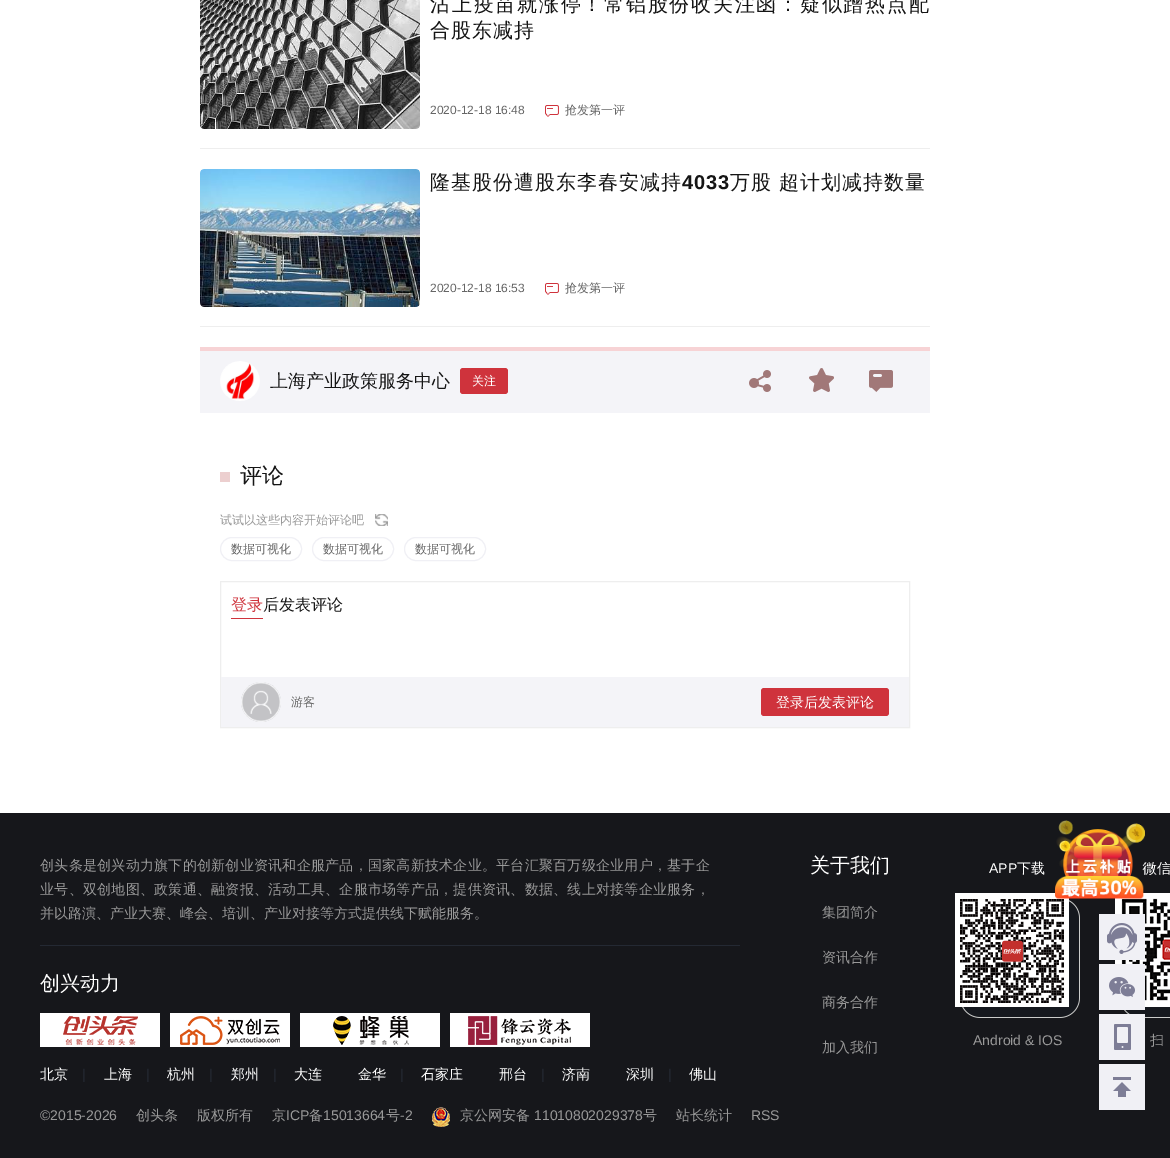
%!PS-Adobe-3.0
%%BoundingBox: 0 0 1170 1158
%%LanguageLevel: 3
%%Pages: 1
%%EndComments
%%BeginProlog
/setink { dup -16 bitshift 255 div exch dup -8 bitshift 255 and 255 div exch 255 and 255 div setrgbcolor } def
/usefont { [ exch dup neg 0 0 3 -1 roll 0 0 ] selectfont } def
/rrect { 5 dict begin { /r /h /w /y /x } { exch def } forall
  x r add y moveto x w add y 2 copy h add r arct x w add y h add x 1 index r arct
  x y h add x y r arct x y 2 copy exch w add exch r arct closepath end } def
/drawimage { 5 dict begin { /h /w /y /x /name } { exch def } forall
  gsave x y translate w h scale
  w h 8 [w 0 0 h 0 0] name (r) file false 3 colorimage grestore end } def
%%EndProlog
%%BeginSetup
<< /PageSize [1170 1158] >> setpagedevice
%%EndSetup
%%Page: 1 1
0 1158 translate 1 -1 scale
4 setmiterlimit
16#FFFFFF setink
0 0 1170 1158 rectfill
(img1.raw) 200 0 220 129 drawimage
/WenQuanYiZenHei-Medium 20 usefont
16#151515 setink
430 11 moveto 1.75 0 (沾上疫苗就涨停！常铝股份收关注函：疑似蹭热点配) ashow
430 37 moveto 1 0 (合股东减持) ashow
/LiberationSans-Regular 12 usefont
16#666666 setink
430 114 moveto (2020-12-18 16:48) show
(img2.raw) 545 105 14 12 drawimage
/WenQuanYiZenHei-Medium 12 usefont
565 114 moveto (抢发第一评) show
16#EEEEEE setink
200 148 730 1 rectfill
(img3.raw) 200 169 220 138 drawimage
/WenQuanYiZenHei-Medium 20 usefont
16#151515 setink
430 189 moveto 1 0 (隆基股份遭股东李春安减持) ashow
/LiberationSans-Bold 20 usefont
682 189 moveto 1 0 (4033) ashow
/WenQuanYiZenHei-Medium 20 usefont
730 189 moveto 1 0 (万股 超计划减持数量) ashow
/LiberationSans-Regular 12 usefont
16#666666 setink
430 292 moveto (2020-12-18 16:53) show
(img2.raw) 545 283 14 12 drawimage
/WenQuanYiZenHei-Medium 12 usefont
565 292 moveto (抢发第一评) show
[
    [200 326 730 1 16#EEEEEE]
    [200 351 730 62 16#F4F4F8]
    [200 347 730 4 16#F7D3D5]
] { aload pop setink rectfill } forall
(img4.raw) 220 361 40 40 drawimage
/WenQuanYiZenHei-Medium 18 usefont
16#151515 setink
270 387 moveto (上海产业政策服务中心) show
16#CF333C setink
460 368 48 26 3 rrect fill
/WenQuanYiZenHei-Medium 12 usefont
16#FFFFFF setink
472 385 moveto (关注) show
(img5.raw) 749 370 22 22 drawimage
(img6.raw) 809 368 25 24 drawimage
(img7.raw) 869 370 24 22 drawimage
16#ECCFCF setink
220 472 10 10 rectfill
/WenQuanYiZenHei-Medium 22 usefont
16#151515 setink
240 483 moveto (评论) show
/WenQuanYiZenHei-Medium 12 usefont
16#999999 setink
220 524 moveto (试试以这些内容开始评论吧) show
(img8.raw) 375 514 13 12 drawimage
16#F0F0F5 setink
220.5 537.5 81 23 11.5 rrect stroke
16#666666 setink
231 553 moveto (数据可视化) show
16#F0F0F5 setink
312.5 537.5 81 23 11.5 rrect stroke
16#666666 setink
323 553 moveto (数据可视化) show
16#F0F0F5 setink
404.5 537.5 81 23 11.5 rrect stroke
16#666666 setink
415 553 moveto (数据可视化) show
16#EEEEEE setink
220.5 581.5 689 146 rectstroke
/WenQuanYiZenHei-Medium 16 usefont
16#CF333C setink
231 610 moveto (登录) show
231 618 32 1 rectfill
16#151515 setink
263 610 moveto (后发表评论) show
16#F4F4F8 setink
221 677 688 50 rectfill
(img9.raw) 241 682 40 40 drawimage
/WenQuanYiZenHei-Medium 12 usefont
16#666666 setink
291 706 moveto (游客) show
16#CF333C setink
761 688 128 28 3 rrect fill
/WenQuanYiZenHei-Medium 14 usefont
16#FFFFFF setink
776 707 moveto (登录后发表评论) show
16#16171B setink
0 813 1170 345 rectfill
(img19.raw) 955 893 125 125 drawimage
16#FFFFFF setink
1143 873 moveto (微信) show
(img20.raw) 1115 893 55 125 drawimage
(img10.raw) 1055 820 90 80 drawimage
(img11.raw) 1099 914 46 46 drawimage
(img12.raw) 1099 964 46 46 drawimage
(img13.raw) 1099 1014 46 46 drawimage
(img14.raw) 1099 1064 46 46 drawimage
16#242933 setink
40 945 700 1 rectfill
16#999999 setink
40 870 moveto 0.25 0 (创头条是创兴动力旗下的创新创业资讯和企服产品，国家高新技术企业。平台汇聚百万级企业用户，基于企) ashow
40 894 moveto 0.25 0 (业号、双创地图、政策通、融资报、活动工具、企服市场等产品，提供资讯、数据、线上对接等企业服务，) ashow
40 918 moveto (并以路演、产业大赛、峰会、培训、产业对接等方式提供线下赋能服务。) show
/WenQuanYiZenHei-Medium 20 usefont
16#FFFFFF setink
40 990 moveto (创兴动力) show
(img15.raw) 40 1013 120 34 drawimage
(img16.raw) 170 1013 120 34 drawimage
(img17.raw) 300 1013 140 34 drawimage
(img18.raw) 450 1013 140 34 drawimage
/WenQuanYiZenHei-Medium 14 usefont
40 1079 moveto (北京) show
/LiberationSans-Regular 14 usefont
16#242933 setink
82 1079 moveto (|) show
/WenQuanYiZenHei-Medium 14 usefont
16#FFFFFF setink
104 1079 moveto (上海) show
/LiberationSans-Regular 14 usefont
16#242933 setink
146 1079 moveto (|) show
/WenQuanYiZenHei-Medium 14 usefont
16#FFFFFF setink
167 1079 moveto (杭州) show
/LiberationSans-Regular 14 usefont
16#242933 setink
209 1079 moveto (|) show
/WenQuanYiZenHei-Medium 14 usefont
16#FFFFFF setink
231 1079 moveto (郑州) show
/LiberationSans-Regular 14 usefont
16#242933 setink
273 1079 moveto (|) show
/WenQuanYiZenHei-Medium 14 usefont
16#FFFFFF setink
294 1079 moveto (大连) show
358 1079 moveto (金华) show
/LiberationSans-Regular 14 usefont
16#242933 setink
400 1079 moveto (|) show
/WenQuanYiZenHei-Medium 14 usefont
16#FFFFFF setink
421 1079 moveto (石家庄) show
499 1079 moveto (邢台) show
/LiberationSans-Regular 14 usefont
16#242933 setink
541 1079 moveto (|) show
/WenQuanYiZenHei-Medium 14 usefont
16#FFFFFF setink
562 1079 moveto (济南) show
626 1079 moveto (深圳) show
/LiberationSans-Regular 14 usefont
16#242933 setink
668 1079 moveto (|) show
/WenQuanYiZenHei-Medium 14 usefont
16#FFFFFF setink
689 1079 moveto (佛山) show
/WenQuanYiZenHei-Medium 20 usefont
810 872 moveto (关于我们) show
/WenQuanYiZenHei-Medium 14 usefont
16#999999 setink
[
    [(集团简介) 822 917]
    [(资讯合作) 822 962]
    [(商务合作) 822 1007]
    [(加入我们) 822 1052]
] { aload pop moveto show } forall
/LiberationSans-Regular 14 usefont
16#FFFFFF setink
989 873 moveto (APP) show
/WenQuanYiZenHei-Medium 14 usefont
1017 873 moveto (下载) show
/LiberationSans-Regular 14 usefont
16#999999 setink
973 1045 moveto (Android & IOS) show
/WenQuanYiZenHei-Medium 14 usefont
1150 1045 moveto (扫) show
/LiberationSans-Regular 14 usefont
40 1120 moveto (©2015-2026) show
/WenQuanYiZenHei-Medium 14 usefont
[
    [(创头条) 136 1120]
    [(版权所有) 197 1120]
    [(京) 272 1120]
] { aload pop moveto show } forall
/LiberationSans-Regular 14 usefont
286 1120 moveto (ICP) show
/WenQuanYiZenHei-Medium 14 usefont
309 1120 moveto (备) show
/LiberationSans-Regular 14 usefont
323 1120 moveto (15013664) show
/WenQuanYiZenHei-Medium 14 usefont
386 1120 moveto (号) show
/LiberationSans-Regular 14 usefont
400 1120 moveto (-2) show
(img21.raw) 432 1107 18 20 drawimage
/WenQuanYiZenHei-Medium 14 usefont
460 1120 moveto (京公网安备) show
/LiberationSans-Regular 14 usefont
534 1120 moveto (11010802029378) show
/WenQuanYiZenHei-Medium 14 usefont
643 1120 moveto (号) show
676 1120 moveto (站长统计) show
/LiberationSans-Regular 14 usefont
751 1120 moveto (RSS) show
showpage
%%EOF
